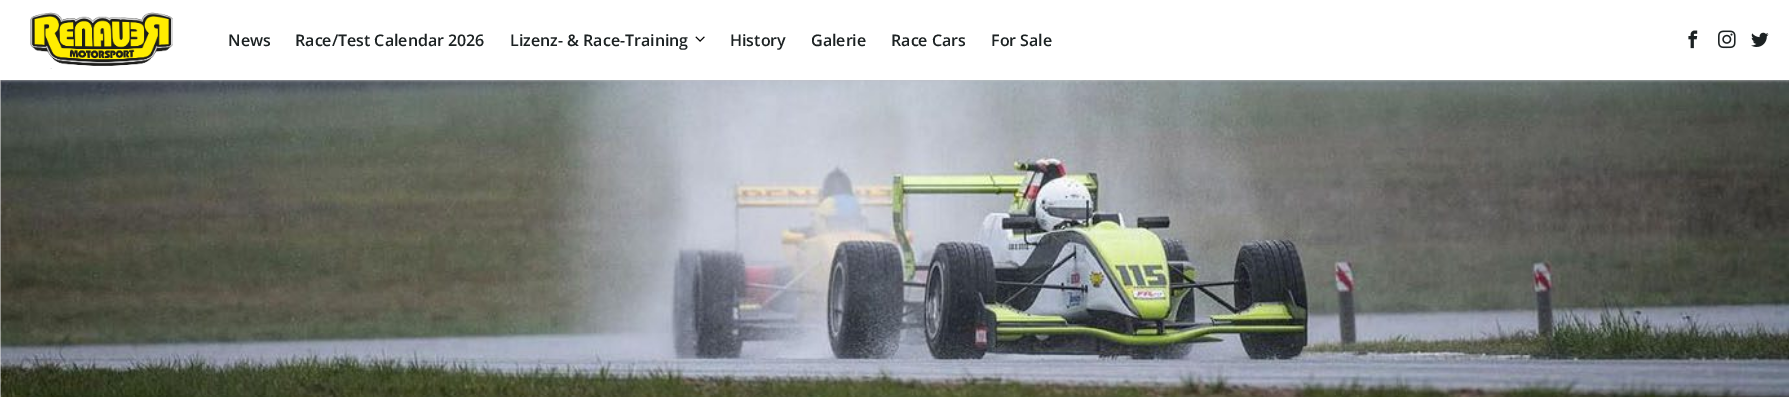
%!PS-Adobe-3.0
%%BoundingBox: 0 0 1789 397
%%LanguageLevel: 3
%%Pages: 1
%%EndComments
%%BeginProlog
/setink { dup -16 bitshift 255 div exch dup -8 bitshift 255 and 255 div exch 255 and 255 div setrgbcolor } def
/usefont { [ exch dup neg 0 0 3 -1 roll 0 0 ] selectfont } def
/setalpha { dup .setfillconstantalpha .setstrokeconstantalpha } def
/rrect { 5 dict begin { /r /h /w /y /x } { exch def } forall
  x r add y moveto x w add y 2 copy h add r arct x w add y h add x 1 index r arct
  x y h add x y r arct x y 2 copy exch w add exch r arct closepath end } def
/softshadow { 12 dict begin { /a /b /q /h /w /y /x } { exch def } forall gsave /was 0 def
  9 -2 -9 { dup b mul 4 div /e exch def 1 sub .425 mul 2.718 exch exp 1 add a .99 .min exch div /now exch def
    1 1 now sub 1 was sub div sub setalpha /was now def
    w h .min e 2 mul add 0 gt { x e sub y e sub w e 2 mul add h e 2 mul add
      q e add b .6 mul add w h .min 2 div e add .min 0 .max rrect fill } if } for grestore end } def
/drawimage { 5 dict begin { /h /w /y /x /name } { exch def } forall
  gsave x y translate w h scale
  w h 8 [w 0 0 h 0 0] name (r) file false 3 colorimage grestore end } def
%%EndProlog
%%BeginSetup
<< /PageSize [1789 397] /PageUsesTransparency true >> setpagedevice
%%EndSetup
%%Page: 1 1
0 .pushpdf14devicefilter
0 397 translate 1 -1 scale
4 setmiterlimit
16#F3F3F3 setink
0 0 1789 397 rectfill
(img6.raw) 0 80 1789 317 drawimage
16#C5C5C5 setink
0 0 1789 80 0 1.5 1 softshadow
16#FFFFFF setink
0 0 1789 80 rectfill
(img1.raw) 30 12 143 57 drawimage
/OpenSans-SemiBold 16 usefont
16#1C2223 setink
[
    [(News) 228 46]
    [(Race/Test Calendar 2026) 295 46]
    [(Lizenz- & Race-Training) 510 46]
] { aload pop moveto show } forall
(img2.raw) 695 36 10 6 drawimage
[
    [(History) 730 46]
    [(Galerie) 811 46]
    [(Race Cars) 891 46]
    [(For Sale) 991 46]
] { aload pop moveto show } forall
(img3.raw) 1688 30 10 19 drawimage
(img4.raw) 1718 30 18 19 drawimage
(img5.raw) 1751 32 18 15 drawimage
.poppdf14devicefilter showpage
%%EOF
